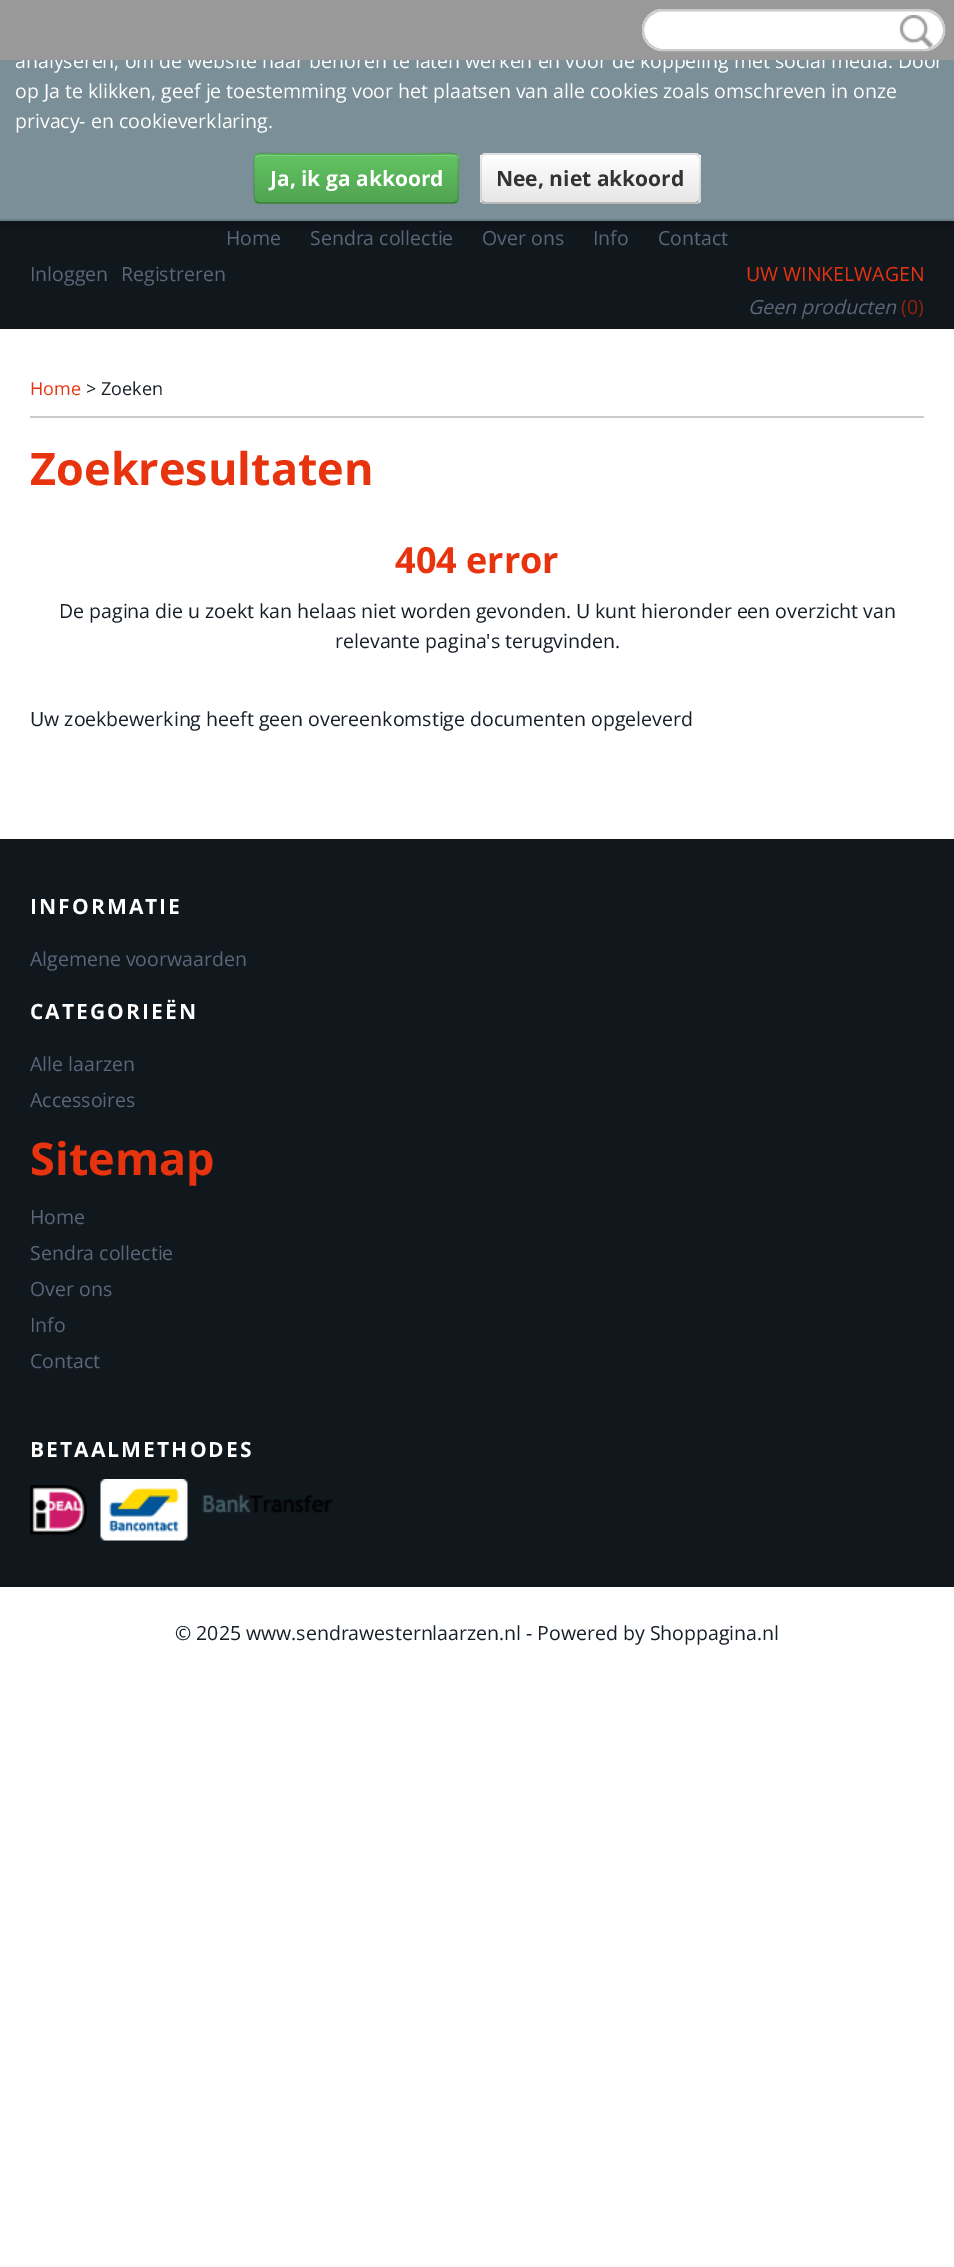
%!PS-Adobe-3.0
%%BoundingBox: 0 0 954 2267
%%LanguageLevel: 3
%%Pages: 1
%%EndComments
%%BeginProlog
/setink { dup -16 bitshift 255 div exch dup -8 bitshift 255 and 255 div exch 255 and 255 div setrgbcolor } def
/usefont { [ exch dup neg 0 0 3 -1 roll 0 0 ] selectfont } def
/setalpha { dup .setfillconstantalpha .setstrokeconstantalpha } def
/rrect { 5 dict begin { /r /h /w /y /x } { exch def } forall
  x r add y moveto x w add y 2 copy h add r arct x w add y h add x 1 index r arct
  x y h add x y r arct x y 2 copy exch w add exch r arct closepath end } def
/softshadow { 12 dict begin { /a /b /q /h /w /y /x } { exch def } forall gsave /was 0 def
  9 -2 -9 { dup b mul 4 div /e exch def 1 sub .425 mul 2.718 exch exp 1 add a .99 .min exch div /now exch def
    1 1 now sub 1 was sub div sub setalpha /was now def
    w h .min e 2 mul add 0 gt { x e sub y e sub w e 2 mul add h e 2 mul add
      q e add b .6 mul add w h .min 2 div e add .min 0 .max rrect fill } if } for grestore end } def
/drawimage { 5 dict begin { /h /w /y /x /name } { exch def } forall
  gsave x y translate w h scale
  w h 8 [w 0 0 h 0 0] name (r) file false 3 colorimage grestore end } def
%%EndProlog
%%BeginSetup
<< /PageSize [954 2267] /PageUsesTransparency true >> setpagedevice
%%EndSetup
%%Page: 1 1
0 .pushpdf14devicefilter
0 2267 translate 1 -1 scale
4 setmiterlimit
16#FFFFFF setink
0 0 954 2267 rectfill
16#10171D setink
0 221 954 108 rectfill
16#000000 setink
0 5 954 220 0 5 0.3 softshadow
16#7A8F98 setink
0 60 954 159 rectfill
/OpenSans-Regular 19.5 usefont
16#FFFFFF setink
15 68 moveto (analyseren, om de website naar behoren te laten werken en voor de koppeling met social media. Door) show
16#999999 setink
0 0 954 60 rectfill
16#FFFFFF setink
642 9 303 42 21 rrect fill
16#ECECEC setink
663 12 moveto 924 12 lineto 935 12 944 21 944 31 curveto 944 20 935 11 924 11 curveto 664 11 lineto 653 11 644 20 644 31 curveto 644 21 652 12 663 12 curveto closepath fill
16#CCCCCC setink
2 setlinewidth
643 10 301 40 20 rrect stroke
(img1.raw) 899 15 34 33 drawimage
16#697E87 setink
0 219 954 2 rectfill
16#FFFFFF setink
15 98 moveto (op Ja te klikken, geef je toestemming voor het plaatsen van alle cookies zoals omschreven in onze) show
15 128 moveto (privacy- en cookieverklaring.) show
16#5BB75B setink
254 153 205 51 6 rrect fill
gsave
254 153 205 51 6 rrect clip newpath
gsave 254 155 moveto 459 155 lineto 459 203 lineto 254 203 lineto closepath clip newpath
<< /ShadingType 2 /ColorSpace /DeviceRGB /Coords [356 155 356 203] /Extend [true true] /Function << /FunctionType 2 /Domain [0 1] /C0 [0.384 0.769 0.384] /C1 [0.318 0.639 0.318] /N 1 >> >> shfill grestore
grestore
16#81D081 setink
260 156 moveto 453 156 lineto 455 156 458 158 458 160 curveto 458 157 456 155 453 155 curveto 260 155 lineto 257 155 255 157 255 160 curveto 255 158 257 156 260 156 curveto closepath fill
0.25 setalpha
16#000000 setink
1.5 setlinewidth
456.5 201.5 moveto 455.5 202.5 454.5 203 453 203 curveto 259.5 203 lineto 258 203 257 202.5 256 201.5 curveto stroke
0.1 setalpha
256 201.5 moveto 253.5 199 254 194.5 254 191.5 curveto 254 185 lineto 254 145.5 248 154 292 154 curveto 421 154 lineto 464.5 154 458 145.5 458 185 curveto 458 191.5 lineto 458 194.5 459 199 456.5 201.5 curveto stroke
/OpenSans-Bold 21 usefont
1 setalpha
16#FFFFFF setink
270 186 moveto (Ja, ik ga akkoord) show
16#F5F5F5 setink
480 153 221 51 6 rrect fill
gsave
480 153 221 51 6 rrect clip newpath
gsave 480 155 moveto 701 155 lineto 701 203 lineto 480 203 lineto closepath clip newpath
<< /ShadingType 2 /ColorSpace /DeviceRGB /Coords [590 155 590 203] /Extend [true true] /Function << /FunctionType 2 /Domain [0 1] /C0 [1 1 1] /C1 [0.902 0.902 0.902] /N 1 >> >> shfill grestore
grestore
0.25 setalpha
16#000000 setink
698 201.5 moveto 697 202.5 696 203 694.5 203 curveto 486 203 lineto 484.5 203 483.5 202.5 482.5 201.5 curveto stroke
0.1 setalpha
482.5 201.5 moveto 481.5 200.5 481 199.5 481 198 curveto 481 159 lineto 481 157.5 481.5 156.5 482.5 155.5 curveto 483.5 154.5 484.5 154 486 154 curveto 694.5 154 lineto 696 154 697 154.5 698 155.5 curveto 699 156.5 700 157.5 700 159 curveto 700 198 lineto 700 199.5 699 200.5 698 201.5 curveto stroke
1 setalpha
16#333333 setink
496 186 moveto (Nee, niet akkoord) show
/OpenSans-Regular 19.5 usefont
16#5B6679 setink
[
    [(Home) 226 245]
    [(Sendra collectie) 310 245]
    [(Over ons) 482 245]
    [(Info) 593 245]
    [(Contact) 658 245]
    [(Inloggen) 30 281]
    [(Registreren) 121 281]
] { aload pop moveto show } forall
16#E8330F setink
746 281 moveto (UW WINKELWAGEN) show
/OpenSans-Italic 19.5 usefont
16#5B6679 setink
748 314 moveto (Geen producten) show
/OpenSans-Regular 19.5 usefont
16#92230D setink
901 314 moveto (\(0\)) show
16#CCCCCC setink
30 416 894 2 rectfill
/OpenSans-Regular 18 usefont
16#E8330F setink
30 395 moveto (Home) show
16#161E27 setink
86 395 moveto (> Zoeken) show
/OpenSans-Bold 45 usefont
16#E8330F setink
30 485 moveto (Zoekresultaten) show
/OpenSans-Bold 36 usefont
395 573 moveto (404 error) show
/OpenSans-Regular 19.5 usefont
16#161E27 setink
[
    [(De pagina die u zoekt kan helaas niet worden gevonden. U kunt hieronder een overzicht van) 59 618]
    [(relevante pagina's terugvinden.) 335 648]
    [(Uw zoekbewerking heeft geen overeenkomstige documenten opgeleverd) 30 726]
] { aload pop moveto show } forall
16#10171D setink
0 839 954 748 rectfill
/OpenSans-Bold 21 usefont
16#FFFFFF setink
30 914 moveto 2.1 0 (INFORMATIE) ashow
/OpenSans-Regular 19.5 usefont
16#5B6679 setink
30 966 moveto (Algemene voorwaarden) show
/OpenSans-Bold 21 usefont
16#FFFFFF setink
30 1019 moveto 2.1 0 (CATEGORIEËN) ashow
/OpenSans-Regular 19.5 usefont
16#5B6679 setink
30 1071 moveto (Alle laarzen) show
30 1107 moveto (Accessoires) show
/OpenSans-Bold 45 usefont
16#E8330F setink
30 1175 moveto (Sitemap) show
/OpenSans-Regular 19.5 usefont
16#5B6679 setink
[
    [(Home) 30 1224]
    [(Sendra collectie) 30 1260]
    [(Over ons) 30 1296]
    [(Info) 30 1332]
    [(Contact) 30 1368]
] { aload pop moveto show } forall
/OpenSans-Bold 21 usefont
16#FFFFFF setink
30 1457 moveto 2.1 0 (BETAALMETHODES) ashow
(img2.raw) 30 1485 57 50 drawimage
(img3.raw) 100 1479 88 62 drawimage
(img4.raw) 202 1494 131 20 drawimage
/OpenSans-Regular 19.5 usefont
16#161E27 setink
175 1640 moveto (© 2025 www.sendrawesternlaarzen.nl - Powered by Shoppagina.nl) show
.poppdf14devicefilter showpage
%%EOF
